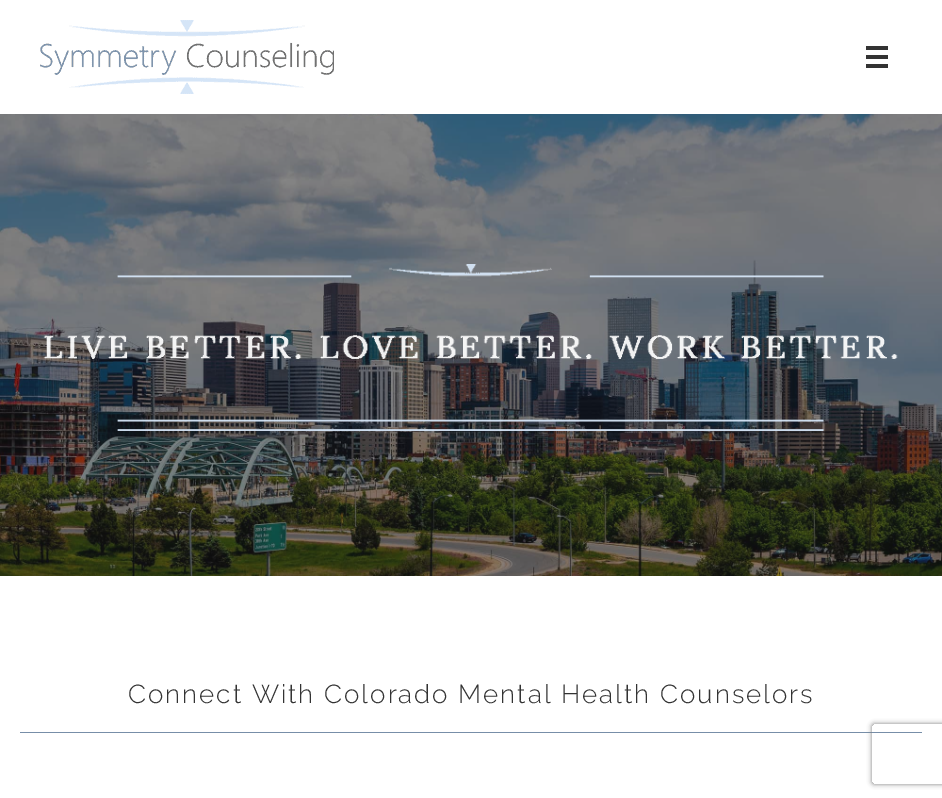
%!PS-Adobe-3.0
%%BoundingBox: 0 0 942 798
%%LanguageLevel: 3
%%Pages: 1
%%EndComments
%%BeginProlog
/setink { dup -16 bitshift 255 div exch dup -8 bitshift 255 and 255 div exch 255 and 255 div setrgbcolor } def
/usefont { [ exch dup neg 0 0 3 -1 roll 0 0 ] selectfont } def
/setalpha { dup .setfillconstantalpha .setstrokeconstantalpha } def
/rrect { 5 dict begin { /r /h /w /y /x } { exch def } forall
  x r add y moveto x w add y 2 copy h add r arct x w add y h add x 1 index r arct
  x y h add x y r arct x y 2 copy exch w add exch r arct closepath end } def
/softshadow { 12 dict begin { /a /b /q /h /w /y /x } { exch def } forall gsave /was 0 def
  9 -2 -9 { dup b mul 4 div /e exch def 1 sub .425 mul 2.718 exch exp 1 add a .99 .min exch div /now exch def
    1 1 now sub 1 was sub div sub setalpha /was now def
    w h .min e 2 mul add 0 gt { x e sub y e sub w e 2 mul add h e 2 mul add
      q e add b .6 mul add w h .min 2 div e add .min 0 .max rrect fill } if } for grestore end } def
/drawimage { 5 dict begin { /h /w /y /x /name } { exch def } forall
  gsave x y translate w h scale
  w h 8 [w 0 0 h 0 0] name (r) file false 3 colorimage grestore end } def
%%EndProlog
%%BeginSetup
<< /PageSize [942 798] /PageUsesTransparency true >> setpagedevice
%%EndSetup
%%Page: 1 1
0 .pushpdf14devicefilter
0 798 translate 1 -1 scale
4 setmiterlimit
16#FFFFFF setink
0 0 942 798 rectfill
(img1.raw) 40 20 294 74 drawimage
[
    [866 46 22 4 16#333333]
    [866 55 22 4 16#333333]
    [866 64 22 4 16#333333]
] { aload pop setink rectfill } forall
(img2.raw) 0 114 942 462 drawimage
(img3.raw) 43 264 855 167 drawimage
/Raleway-Light 26 usefont
128 703 moveto 2 0 (Connect With Colorado Mental Health Counselors) ashow
16#778EA8 setink
20 732 902 1 rectfill
gsave
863 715 moveto 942 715 lineto 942 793 lineto 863 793 lineto closepath 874 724 moveto 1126 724 lineto 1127 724 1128 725 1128 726 curveto 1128 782 lineto 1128 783 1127 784 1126 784 curveto 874 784 lineto 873 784 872 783 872 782 curveto 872 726 lineto 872 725 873 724 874 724 curveto closepath eoclip newpath
16#808080 setink
872 724 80 60 2 2.5 1 softshadow
grestore
.poppdf14devicefilter showpage
%%EOF
